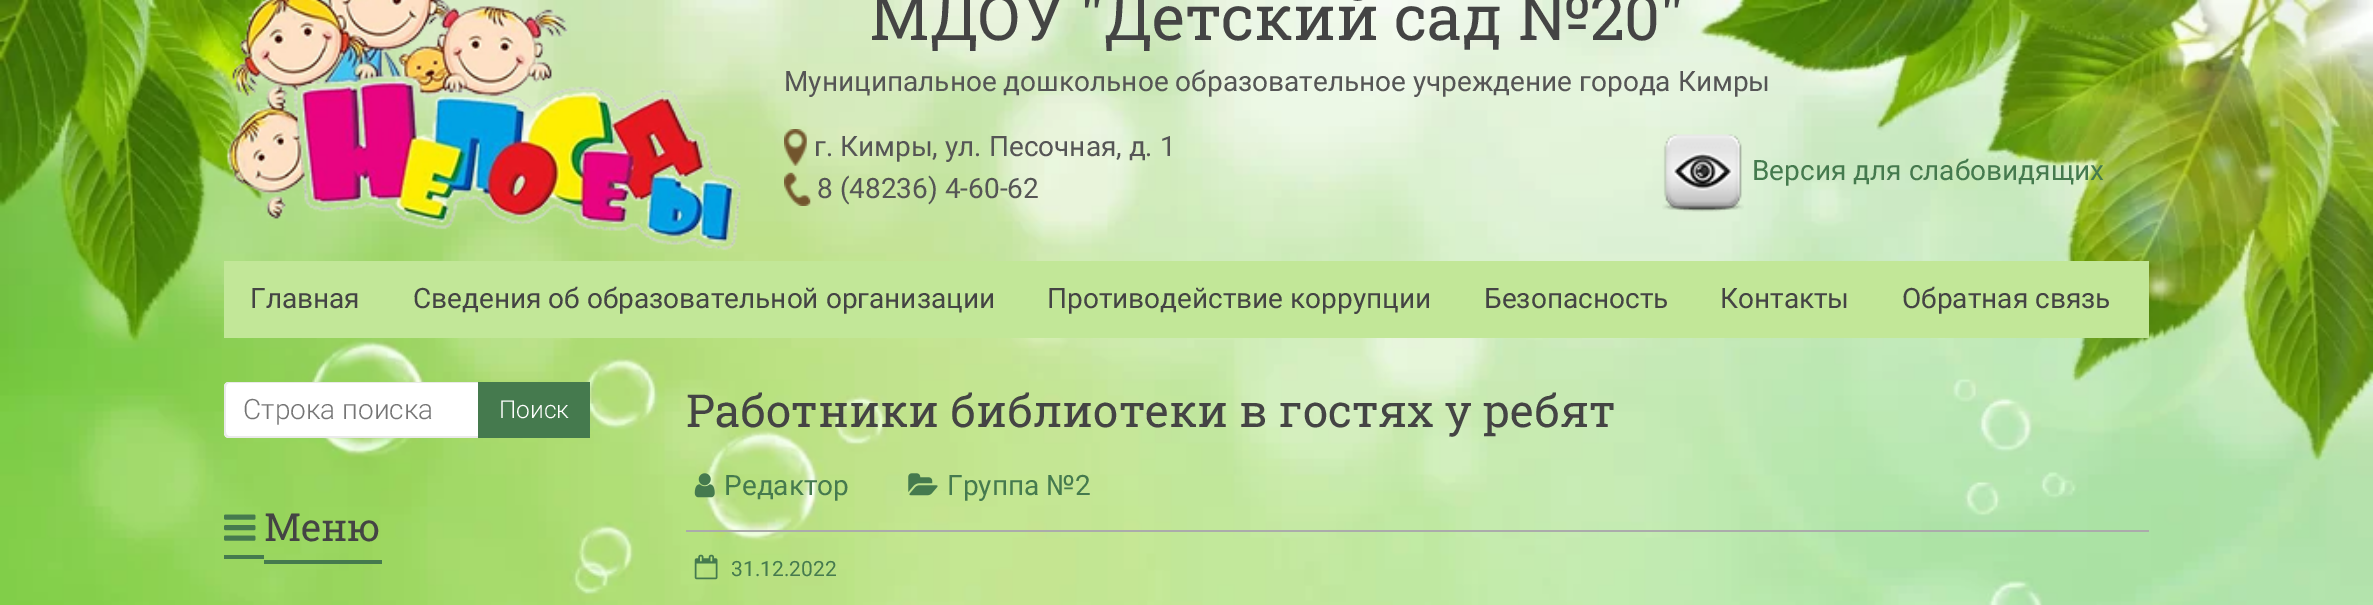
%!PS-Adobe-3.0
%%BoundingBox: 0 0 2373 605
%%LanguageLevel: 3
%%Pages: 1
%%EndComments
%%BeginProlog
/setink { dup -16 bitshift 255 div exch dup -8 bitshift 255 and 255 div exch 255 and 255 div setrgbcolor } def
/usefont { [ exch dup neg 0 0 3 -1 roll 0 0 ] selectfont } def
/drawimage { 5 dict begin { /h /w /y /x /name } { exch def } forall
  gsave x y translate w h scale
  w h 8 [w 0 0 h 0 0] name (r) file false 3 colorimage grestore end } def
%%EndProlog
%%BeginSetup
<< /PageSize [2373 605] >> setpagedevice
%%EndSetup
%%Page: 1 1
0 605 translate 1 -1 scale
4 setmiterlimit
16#FFFFFF setink
0 0 2373 605 rectfill
(img1.raw) 0 0 2373 605 drawimage
(img2.raw) 224 0 517 252 drawimage
/RobotoSlab-Regular 63 usefont
16#444444 setink
869 40 moveto (МДОУ "Детский сад №20") show
/Roboto-Regular 28 usefont
16#555555 setink
784 91 moveto (Муниципальное дошкольное образовательное учреждение города Кимры) show
(img3.raw) 784 129 23 37 drawimage
814 156 moveto (г. Кимры, ул. Песочная, д. 1) show
(img4.raw) 784 172 27 34 drawimage
817 198 moveto (8 \(48236\) 4-60-62) show
(img5.raw) 1662 134 82 78 drawimage
16#457A4E setink
1752 180 moveto (Версия для слабовидящих) show
16#C2E798 setink
224 261 1925 77 rectfill
16#444444 setink
[
    [(Главная) 250 308]
    [(Сведения об образовательной организации) 413 308]
    [(Противодействие коррупции) 1047 308]
    [(Безопасность) 1484 308]
    [(Контакты) 1720 308]
    [(Обратная связь) 1902 308]
] { aload pop moveto show } forall
16#FFFFFF setink
229 382 moveto 478 382 lineto 478 438 lineto 229 438 lineto 226 438 224 436 224 433 curveto 224 387 lineto 224 384 226 382 229 382 curveto closepath fill
16#EAEAEA setink
229 382 moveto 478 382 lineto 478 438 lineto 229 438 lineto 226 438 224 435 224 432 curveto 224 387 lineto 224 384 226 382 229 382 curveto closepath 229 383 moveto 478 383 lineto 478 436 lineto 229 436 lineto 227 436 226 434 226 432 curveto 226 387 lineto 226 385 227 383 229 383 curveto closepath eofill
/Roboto-Light 28 usefont
16#757575 setink
243 419 moveto (Строка поиска) show
16#457A4E setink
478 382 112 56 rectfill
/Roboto-Light 24.5 usefont
16#FFFFFF setink
499 418 moveto (Поиск) show
(img6.raw) 224 514 32 27 drawimage
/RobotoSlab-Regular 38.5 usefont
16#444444 setink
264 541 moveto (Меню) show
16#457A4E setink
224 555 40 4 rectfill
264 560 118 4 rectfill
/RobotoSlab-Regular 45.5 usefont
16#444444 setink
686 427 moveto (Работники библиотеки в гостях у ребят) show
(img7.raw) 694 473 21 25 drawimage
/Roboto-Regular 28 usefont
16#457A4E setink
724 495 moveto (Редактор) show
(img8.raw) 908 473 30 23 drawimage
947 495 moveto (Группа №2) show
16#ABABAB setink
686 530 1463 2 rectfill
(img9.raw) 694 554 24 26 drawimage
/Roboto-Regular 21 usefont
16#457A4E setink
731 576 moveto (31.12.2022) show
showpage
%%EOF
